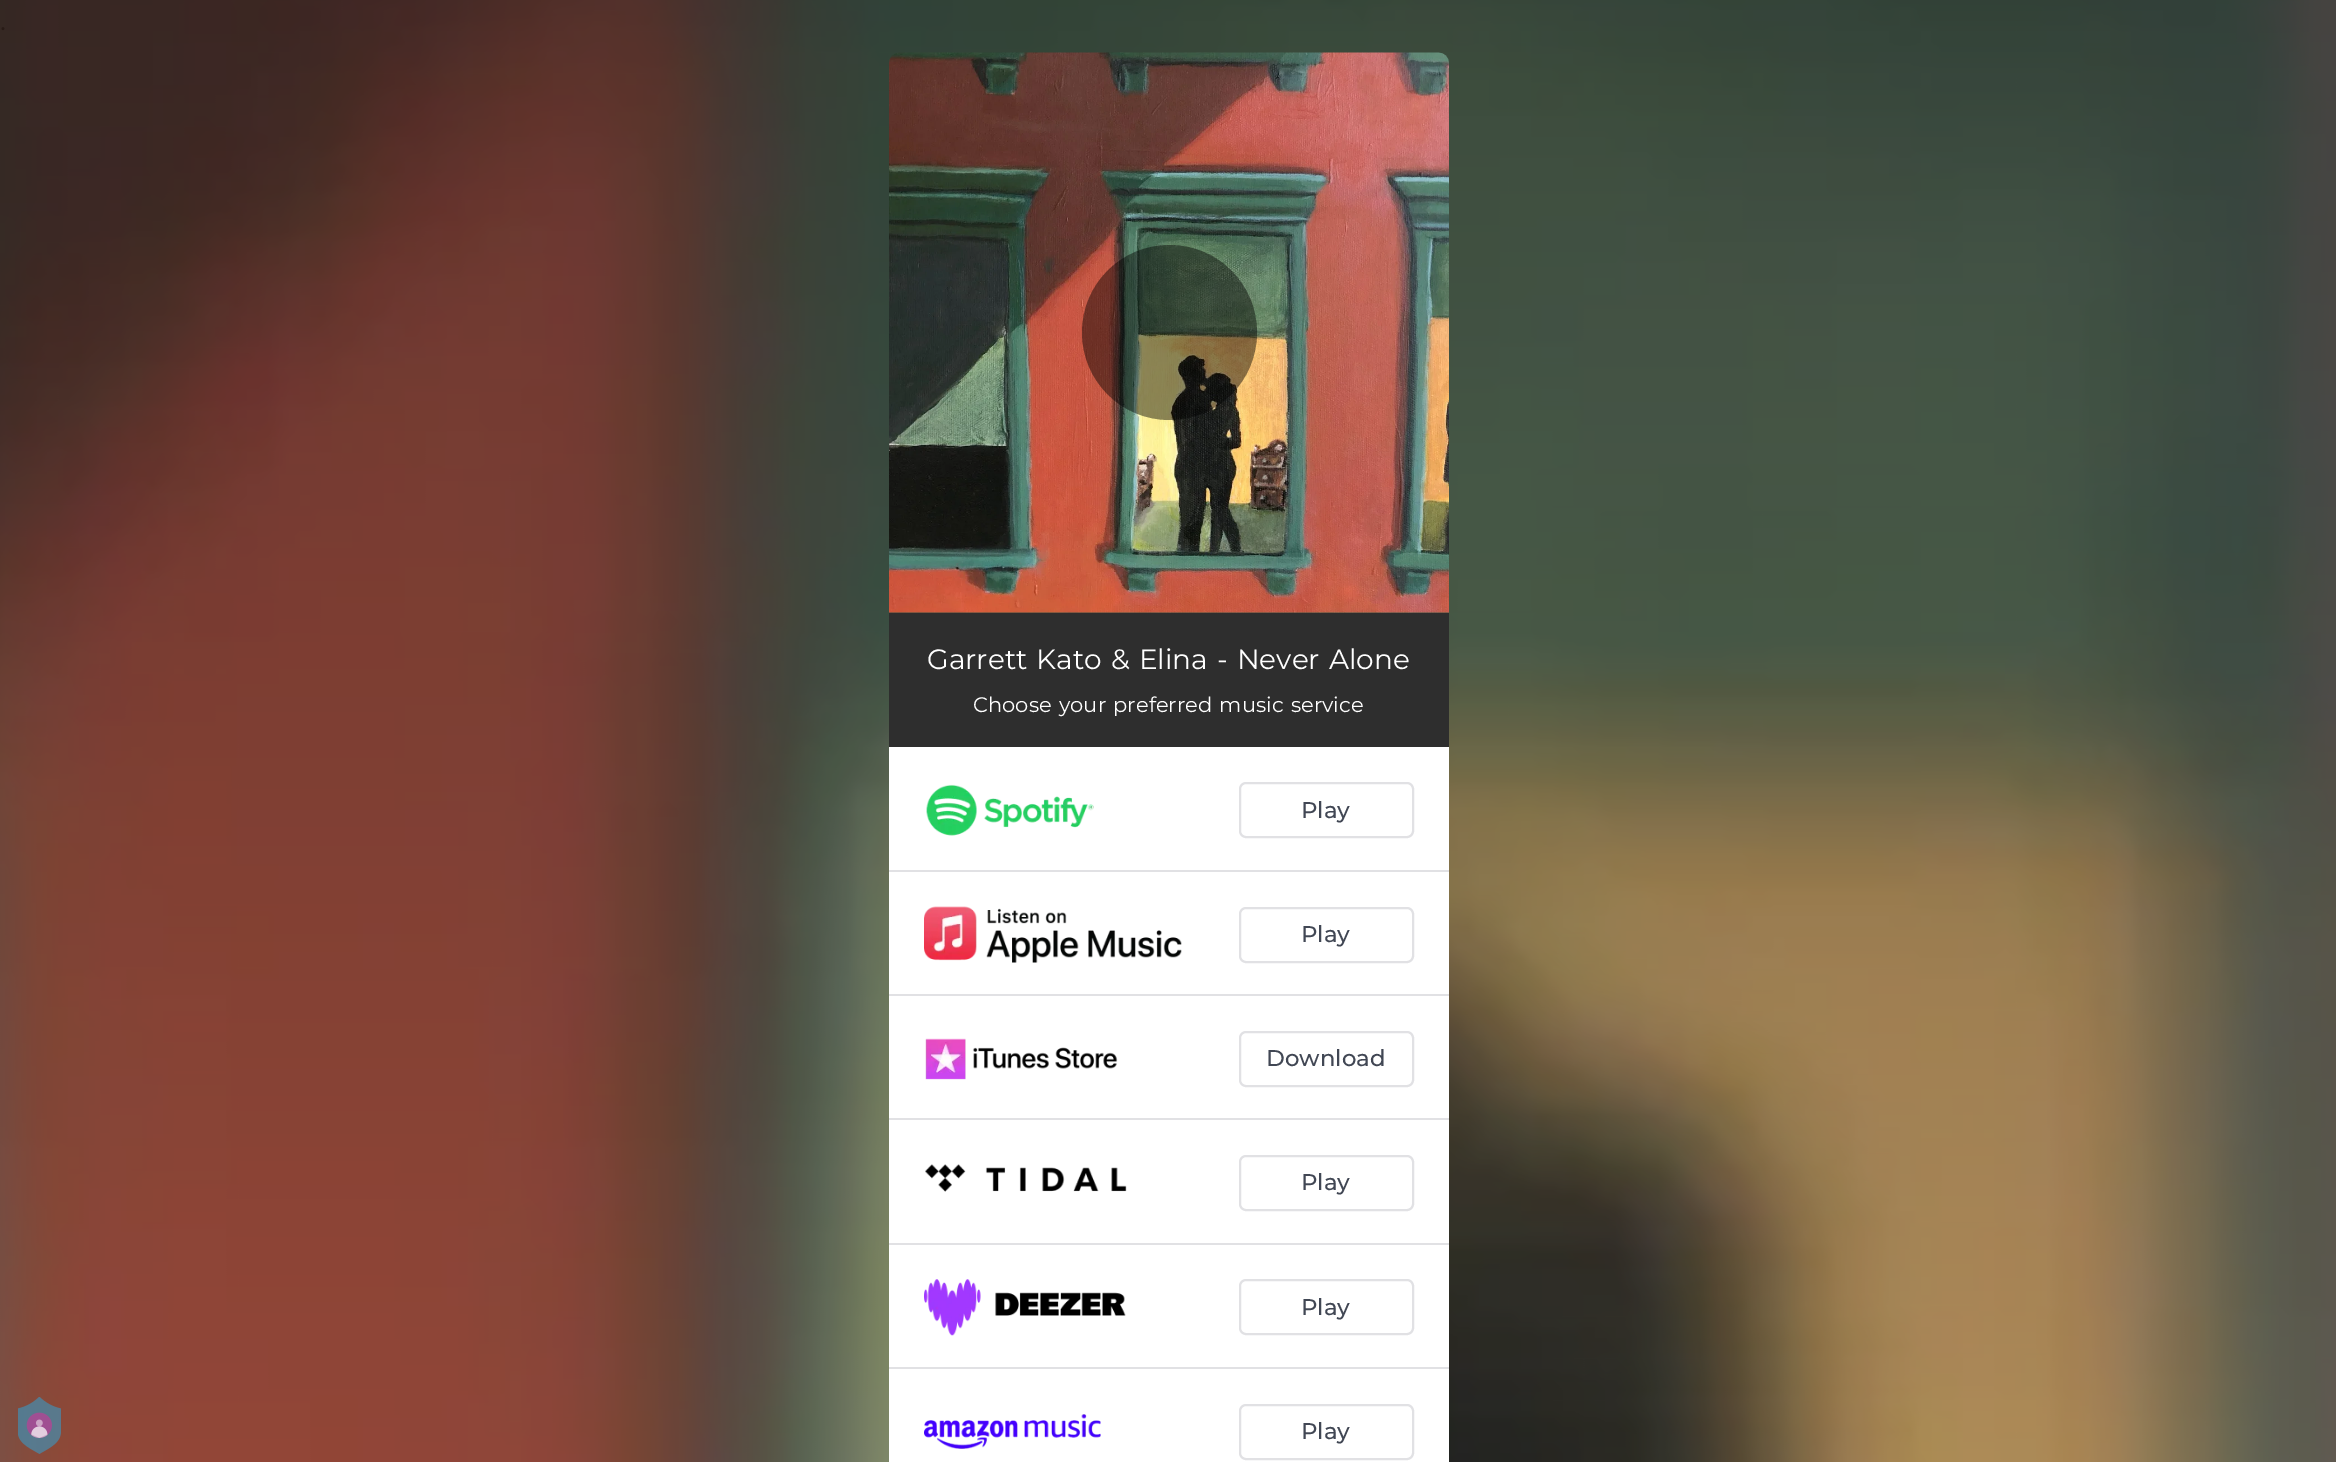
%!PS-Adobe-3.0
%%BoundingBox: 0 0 2336 1462
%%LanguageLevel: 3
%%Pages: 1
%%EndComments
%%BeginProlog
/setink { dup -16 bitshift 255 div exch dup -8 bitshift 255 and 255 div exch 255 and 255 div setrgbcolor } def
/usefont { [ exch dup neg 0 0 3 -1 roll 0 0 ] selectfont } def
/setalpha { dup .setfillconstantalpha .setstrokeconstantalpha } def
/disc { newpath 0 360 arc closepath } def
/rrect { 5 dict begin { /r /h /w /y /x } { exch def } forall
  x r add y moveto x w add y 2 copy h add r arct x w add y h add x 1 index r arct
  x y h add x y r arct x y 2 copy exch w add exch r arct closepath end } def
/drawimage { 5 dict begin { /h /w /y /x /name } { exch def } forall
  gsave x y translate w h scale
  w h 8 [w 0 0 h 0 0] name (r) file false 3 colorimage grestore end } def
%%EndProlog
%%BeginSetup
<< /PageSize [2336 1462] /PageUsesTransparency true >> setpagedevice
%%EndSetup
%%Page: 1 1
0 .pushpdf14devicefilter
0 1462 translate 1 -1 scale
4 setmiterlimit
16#FFFFFF setink
0 0 2336 1462 rectfill
(img2.raw) 0 0 2336 1462 drawimage
(img1.raw) 18 1397 43 57 drawimage
(img3.raw) 889 52 560 561 drawimage
0.45 setalpha
16#000000 setink
1169.5 332.5 87.5 disc fill
1 setalpha
16#2E2E2E setink
889 613 560 134 rectfill
/Montserrat-Regular 28 usefont
16#FFFFFF setink
927 669 moveto 1.75 0 32 (Garrett Kato & Elina - Never Alone) widthshow
/Montserrat-Regular 21 usefont
973 712 moveto 1.75 0 32 (Choose your preferred music service) widthshow
889 747 560 715 rectfill
16#E1E1E4 setink
889 870 560 2 rectfill
(img4.raw) 926 784 168 52 drawimage
2 setlinewidth
1240 783 173 54 6 rrect stroke
/Montserrat-Medium 22.75 usefont
16#414754 setink
1301 818 moveto (Play) show
16#E1E1E4 setink
889 994 560 2 rectfill
(img5.raw) 924 906 258 57 drawimage
1240 908 173 54 6 rrect stroke
16#414754 setink
1301 942 moveto (Play) show
16#E1E1E4 setink
889 1118 560 2 rectfill
(img6.raw) 925 1038 193 42 drawimage
1240 1032 173 54 6 rrect stroke
16#414754 setink
1266 1066 moveto (Download) show
16#E1E1E4 setink
889 1243 560 2 rectfill
(img7.raw) 925 1164 202 28 drawimage
1240 1156 173 54 6 rrect stroke
16#414754 setink
1301 1190 moveto (Play) show
16#E1E1E4 setink
889 1367 560 2 rectfill
(img8.raw) 924 1279 202 57 drawimage
1240 1280 173 54 6 rrect stroke
16#414754 setink
1301 1315 moveto (Play) show
(img9.raw) 924 1414 177 35 drawimage
16#E1E1E4 setink
1240 1405 173 54 6 rrect stroke
16#414754 setink
1301 1439 moveto (Play) show
.poppdf14devicefilter showpage
%%EOF
